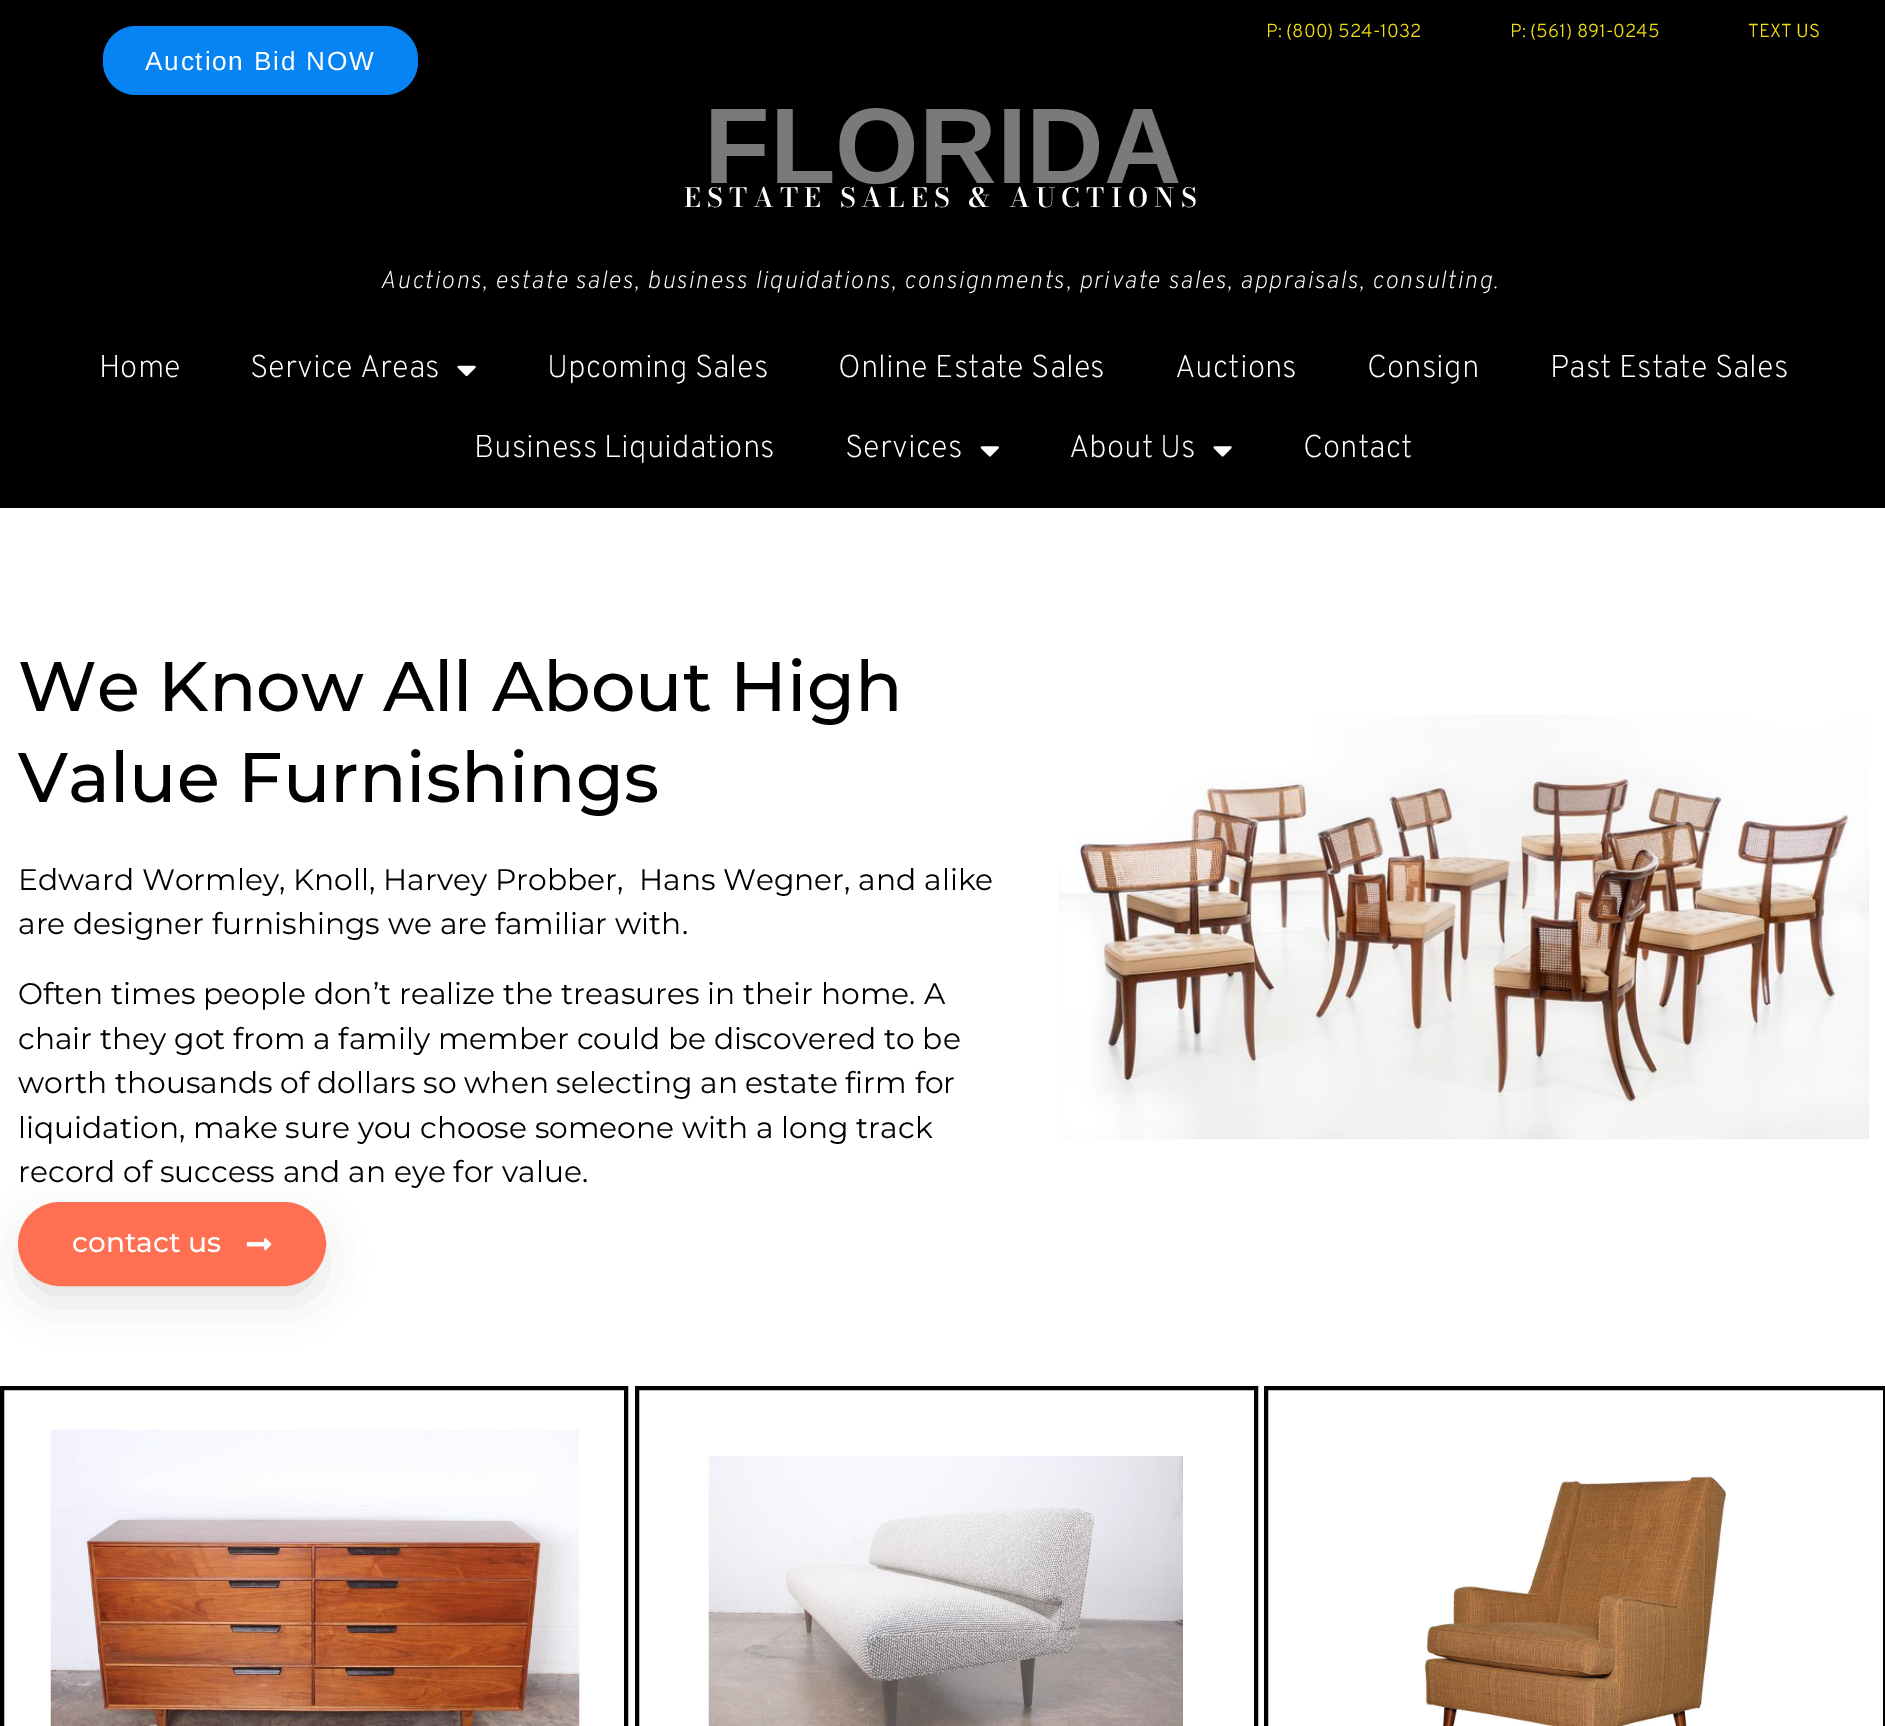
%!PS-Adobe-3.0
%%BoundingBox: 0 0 1885 1726
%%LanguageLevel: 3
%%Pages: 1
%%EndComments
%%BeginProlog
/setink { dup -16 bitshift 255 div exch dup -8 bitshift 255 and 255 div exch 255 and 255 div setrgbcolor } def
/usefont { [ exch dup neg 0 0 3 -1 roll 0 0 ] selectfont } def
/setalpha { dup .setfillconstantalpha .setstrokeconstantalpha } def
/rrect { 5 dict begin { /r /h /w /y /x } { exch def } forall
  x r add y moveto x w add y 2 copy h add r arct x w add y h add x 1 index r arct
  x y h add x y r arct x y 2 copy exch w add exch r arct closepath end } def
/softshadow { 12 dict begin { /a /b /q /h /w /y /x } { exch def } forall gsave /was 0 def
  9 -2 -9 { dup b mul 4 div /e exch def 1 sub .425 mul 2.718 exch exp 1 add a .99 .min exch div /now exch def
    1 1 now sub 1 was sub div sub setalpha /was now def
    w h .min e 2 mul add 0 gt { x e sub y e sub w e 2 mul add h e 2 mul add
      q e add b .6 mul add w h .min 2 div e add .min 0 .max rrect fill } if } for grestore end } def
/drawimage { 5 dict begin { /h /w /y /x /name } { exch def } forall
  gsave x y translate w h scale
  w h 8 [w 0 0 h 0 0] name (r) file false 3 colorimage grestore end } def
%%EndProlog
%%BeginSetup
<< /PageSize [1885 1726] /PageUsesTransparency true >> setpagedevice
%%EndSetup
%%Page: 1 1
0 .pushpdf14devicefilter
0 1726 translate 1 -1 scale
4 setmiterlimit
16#FFFFFF setink
0 0 1885 1726 rectfill
16#000000 setink
0 0 1885 508 rectfill
/Overpass-Light 18.75 usefont
16#F3DF0E setink
[
    [(P: \(800\) 524-1032) 1266 37]
    [(P: \(561\) 891-0245) 1510 37]
    [(TEXT US) 1748 37]
] { aload pop moveto show } forall
16#0784F3 setink
103 26 315 69 33 rrect fill
/LiberationSans-Regular 26.25 usefont
16#FFFFFF setink
145 70 moveto 1.75 0 (Auction Bid NOW) ashow
/LiberationSans-Bold 107.5 usefont
16#7A7A7A setink
704 183 moveto (FLORIDA) show
/BodoniModa-SemiBold 26.4 usefont
16#FFFFFF setink
684 207 moveto 6.1 0 (ESTATE SALES & AUCTIONS) ashow
/Overpass-ExtraLightItalic 24.5 usefont
380 288 moveto 1.4 0 (Auctions, estate sales, business liquidations, consignments, private sales, appraisals, consulting.) ashow
/Overpass-ExtraLight 31.5 usefont
99 377 moveto (Home) show
250 377 moveto (Service Areas) show
(img1.raw) 457 365 19 12 drawimage
[
    [(Upcoming Sales) 547 377]
    [(Online Estate Sales) 838 377]
    [(Auctions) 1175 377]
    [(Consign) 1367 377]
    [(Past Estate Sales) 1550 377]
    [(Business Liquidations) 474 457]
    [(Services) 845 457]
] { aload pop moveto show } forall
(img2.raw) 980 446 19 11 drawimage
1069 457 moveto (About Us) show
(img3.raw) 1213 446 19 11 drawimage
1303 457 moveto (Contact) show
/Montserrat-Medium 70 usefont
16#000000 setink
18 711 moveto (We Know All About High) show
18 802 moveto (Value Furnishings) show
/Montserrat-Regular 29.75 usefont
[
    [(Edward Wormley, Knoll, Harvey Probber,  Hans Wegner, and alike) 18 890]
    [(are designer furnishings we are familiar with.) 18 934]
    [(Often times people don’t realize the treasures in their home. A) 18 1004]
    [(chair they got from a family member could be discovered to be) 18 1049]
    [(worth thousands of dollars so when selecting an estate firm for) 18 1093]
    [(liquidation, make sure you choose someone with a long track) 18 1138]
    [(record of success and an eye for value.) 18 1182]
] { aload pop moveto show } forall
32 1234 280 56 28 26 0.16 softshadow
16#FF7052 setink
19 1203 306 82 41 rrect gsave fill grestore
2 setlinewidth
stroke
/Montserrat-Medium 28 usefont
16#FFFFFF setink
72 1252 moveto (contact us) show
(img4.raw) 246 1238 26 13 drawimage
(img5.raw) 1059 714 810 426 drawimage
16#000000 setink
4 setlinewidth
2 1388 624 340 rectstroke
(img6.raw) 50 1429 530 297 drawimage
637 1388 619 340 rectstroke
(img7.raw) 708 1456 475 270 drawimage
1266 1388 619 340 rectstroke
(img8.raw) 1424 1476 302 250 drawimage
.poppdf14devicefilter showpage
%%EOF
